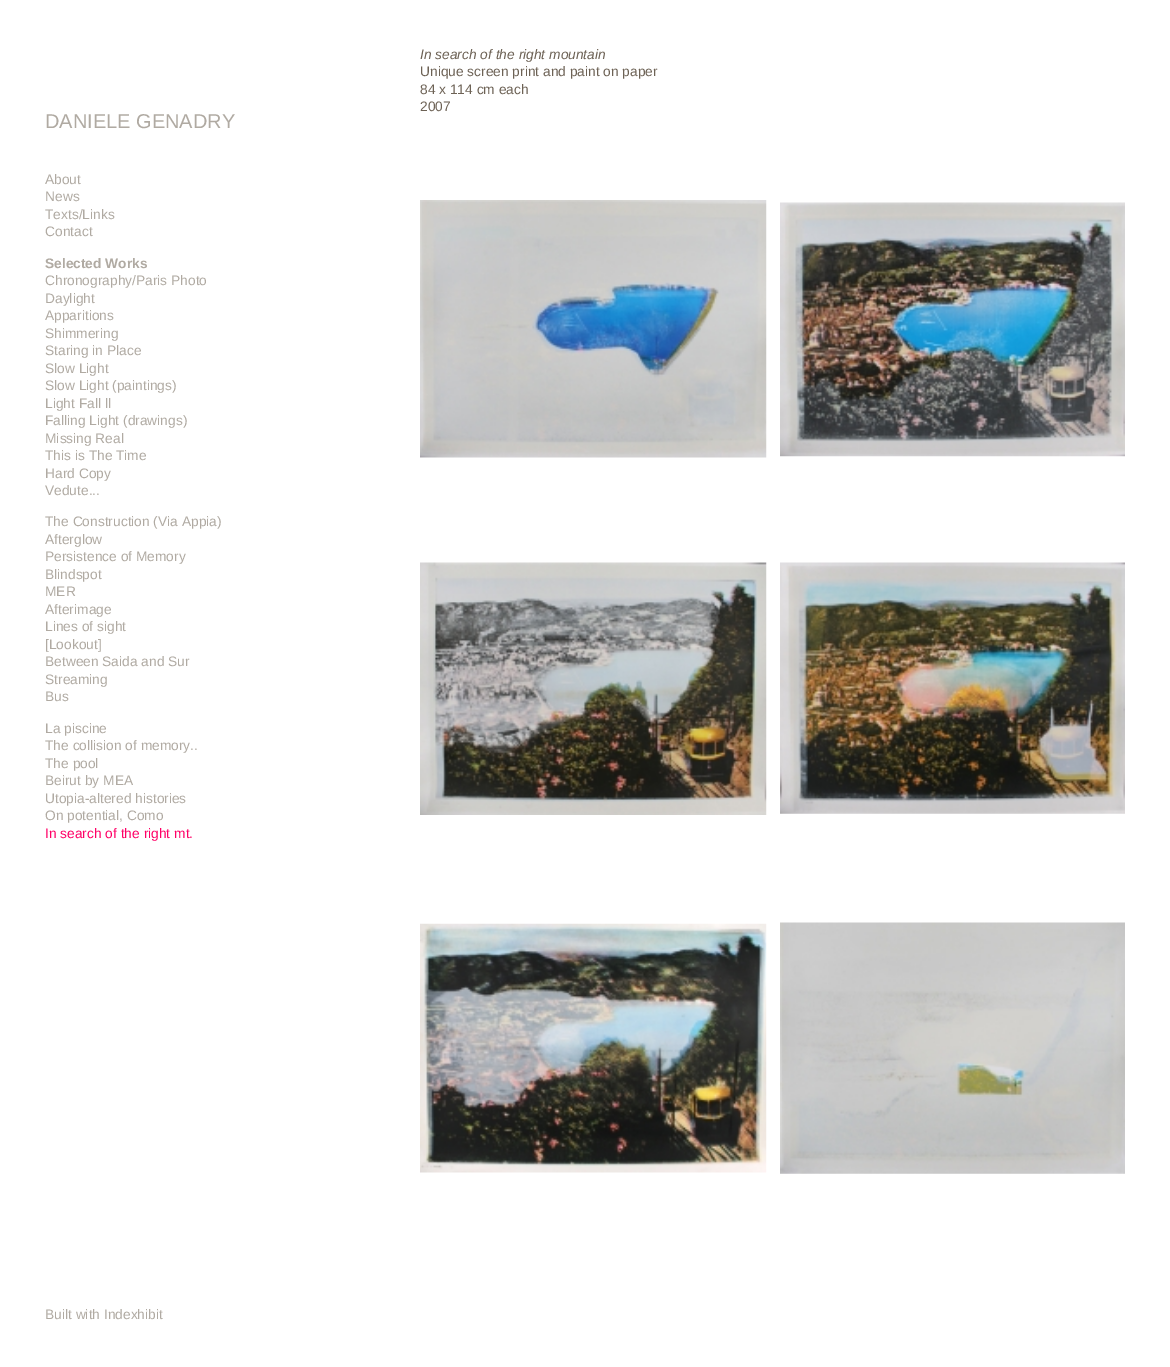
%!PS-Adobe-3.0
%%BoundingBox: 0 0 1170 1367
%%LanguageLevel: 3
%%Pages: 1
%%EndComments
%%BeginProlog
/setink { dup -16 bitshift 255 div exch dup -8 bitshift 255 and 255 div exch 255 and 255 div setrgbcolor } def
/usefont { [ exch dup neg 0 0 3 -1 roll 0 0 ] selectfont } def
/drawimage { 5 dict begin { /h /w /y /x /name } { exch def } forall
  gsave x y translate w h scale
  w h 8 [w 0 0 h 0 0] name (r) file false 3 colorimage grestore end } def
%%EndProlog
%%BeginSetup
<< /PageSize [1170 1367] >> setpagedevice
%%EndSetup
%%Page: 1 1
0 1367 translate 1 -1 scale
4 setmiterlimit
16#FFFFFF setink
0 0 1170 1367 rectfill
/LiberationSans-Italic 13.75 usefont
16#6D6255 setink
420 59 moveto (In search of the right mountain) show
/LiberationSans-Regular 13.75 usefont
[
    [(Unique screen print and paint on paper) 420 76]
    [(84 x 114 cm each) 420 94]
    [(2007) 420 111]
] { aload pop moveto show } forall
(img1.raw) 420 200 347 258 drawimage
(img2.raw) 780 202 345 255 drawimage
(img3.raw) 420 562 347 253 drawimage
(img4.raw) 780 562 345 252 drawimage
(img5.raw) 420 923 347 250 drawimage
(img6.raw) 780 922 345 252 drawimage
/LiberationSans-Regular 20 usefont
16#B0AAA2 setink
45 128 moveto (DANIELE GENADRY) show
/LiberationSans-Regular 13.75 usefont
[
    [(About) 45 184]
    [(News) 45 201]
    [(Texts/Links) 45 219]
    [(Contact) 45 236]
] { aload pop moveto show } forall
/LiberationSans-Bold 13.75 usefont
45 268 moveto (Selected Works) show
/LiberationSans-Regular 13.75 usefont
[
    [(Chronography/Paris Photo) 45 285]
    [(Daylight) 45 303]
    [(Apparitions) 45 320]
    [(Shimmering) 45 338]
    [(Staring in Place) 45 355]
    [(Slow Light) 45 373]
    [(Slow Light \(paintings\)) 45 390]
    [(Light Fall ll) 45 408]
    [(Falling Light \(drawings\)) 45 425]
    [(Missing Real) 45 443]
    [(This is The Time) 45 460]
    [(Hard Copy) 45 478]
    [(Vedute...) 45 495]
    [(The Construction \(Via Appia\)) 45 526]
    [(Afterglow) 45 544]
    [(Persistence of Memory) 45 561]
    [(Blindspot) 45 579]
    [(MER) 45 596]
    [(Afterimage) 45 614]
    [(Lines of sight) 45 631]
    [([Lookout]) 45 649]
    [(Between Saida and Sur) 45 666]
    [(Streaming) 45 684]
    [(Bus) 45 701]
    [(La piscine) 45 733]
    [(The collision of memory..) 45 750]
    [(The pool) 45 768]
    [(Beirut by MEA) 45 785]
    [(Utopia-altered histories) 45 803]
    [(On potential, Como) 45 820]
] { aload pop moveto show } forall
16#FF0066 setink
45 838 moveto (In search of the right mt.) show
16#B0AAA2 setink
45 1319 moveto (Built with Indexhibit) show
showpage
%%EOF
